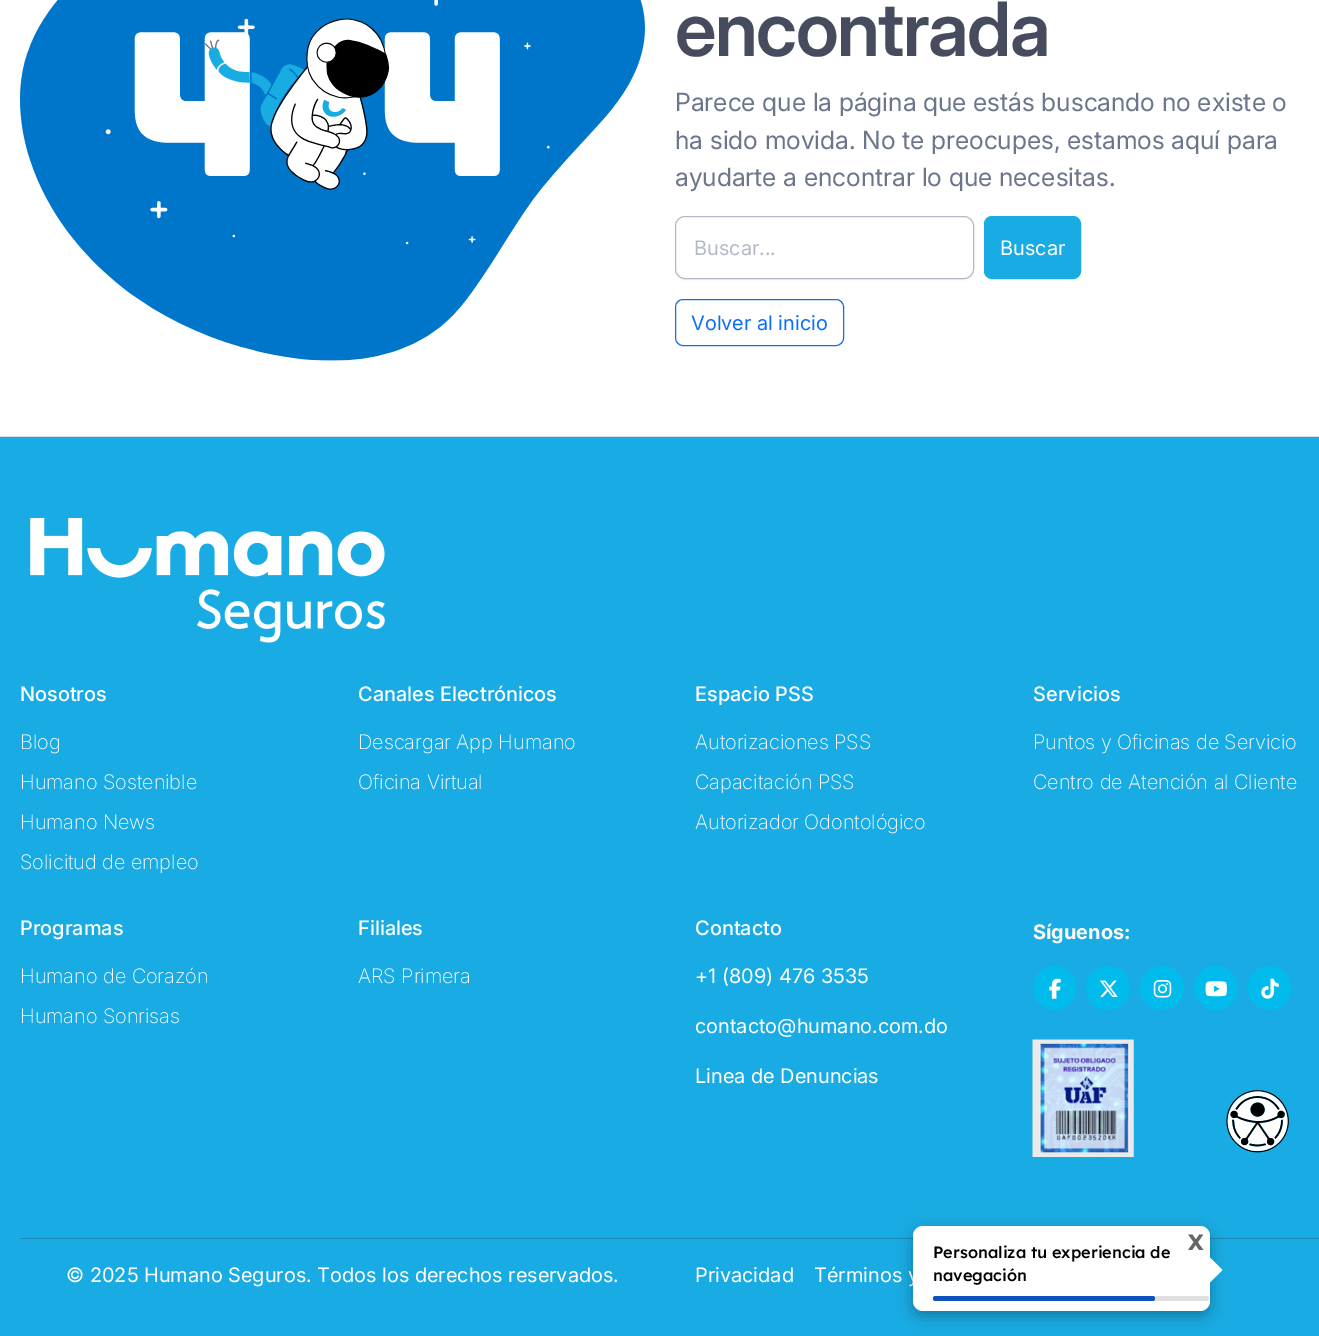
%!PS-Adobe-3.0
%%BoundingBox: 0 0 1319 1336
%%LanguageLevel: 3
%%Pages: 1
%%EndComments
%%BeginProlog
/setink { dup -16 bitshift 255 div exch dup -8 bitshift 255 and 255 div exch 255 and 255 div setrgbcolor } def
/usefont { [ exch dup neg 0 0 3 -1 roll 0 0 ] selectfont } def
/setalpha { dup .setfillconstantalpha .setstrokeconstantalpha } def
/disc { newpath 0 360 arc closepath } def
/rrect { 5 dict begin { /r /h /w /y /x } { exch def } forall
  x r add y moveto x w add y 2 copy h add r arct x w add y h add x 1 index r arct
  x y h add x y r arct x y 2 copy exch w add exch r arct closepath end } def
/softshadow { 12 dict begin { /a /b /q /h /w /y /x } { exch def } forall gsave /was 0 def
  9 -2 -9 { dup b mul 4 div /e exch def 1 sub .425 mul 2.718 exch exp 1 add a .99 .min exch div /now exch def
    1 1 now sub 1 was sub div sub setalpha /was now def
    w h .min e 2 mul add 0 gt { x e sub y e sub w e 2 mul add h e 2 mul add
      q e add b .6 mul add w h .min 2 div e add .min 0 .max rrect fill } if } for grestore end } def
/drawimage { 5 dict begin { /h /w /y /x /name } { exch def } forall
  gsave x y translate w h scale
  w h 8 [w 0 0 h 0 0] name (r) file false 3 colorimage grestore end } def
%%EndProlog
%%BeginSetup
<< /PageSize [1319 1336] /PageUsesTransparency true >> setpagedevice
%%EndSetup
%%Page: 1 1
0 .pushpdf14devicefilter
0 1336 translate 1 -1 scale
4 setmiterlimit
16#FFFFFF setink
0 0 1319 1336 rectfill
(img1.raw) 20 0 625 361 drawimage
/Inter-SemiBold 75 usefont
16#464C5E setink
675 56 moveto -1.5 0 (encontrada) ashow
/Inter-Regular 25 usefont
16#6B758C setink
[
    [(Parece que la página que estás buscando no existe o) 675 111]
    [(ha sido movida. No te preocupes, estamos aquí para) 675 149]
    [(ayudarte a encontrar lo que necesitas.) 675 186]
] { aload pop moveto show } forall
16#101828 setink
675 218 299 62 10 1 0.05 softshadow
16#FFFFFF setink
675.5 216.5 298 62 9.5 rrect gsave fill grestore
16#B3B9C6 setink
stroke
/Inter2-Regular 20 usefont
694 255 moveto (Buscar...) show
16#19ABE3 setink
984.5 216.5 96 62 7.5 rrect gsave fill grestore
stroke
16#FFFFFF setink
1000 255 moveto (Buscar) show
16#0D6EFD setink
675.5 299.5 168 46 7.5 rrect stroke
691 330 moveto (Volver al inicio) show
16#19ABE3 setink
0 437 1319 899 rectfill
16#D6D9E1 setink
0 436 1319 1 rectfill
(img2.raw) 30 518 355 125 drawimage
/Inter-Medium 20 usefont
16#FFFFFF setink
20 701 moveto (Nosotros) show
/Inter-ExtraLight 20 usefont
[
    [(Blog) 20 749]
    [(Humano Sostenible) 20 789]
    [(Humano News) 20 829]
    [(Solicitud de empleo) 20 869]
] { aload pop moveto show } forall
/Inter-Medium 20 usefont
358 701 moveto (Canales Electrónicos) show
/Inter-ExtraLight 20 usefont
358 749 moveto (Descargar App Humano) show
358 789 moveto (Oficina Virtual) show
/Inter-Medium 20 usefont
695 701 moveto (Espacio PSS) show
/Inter-ExtraLight 20 usefont
[
    [(Autorizaciones PSS) 695 749]
    [(Capacitación PSS) 695 789]
    [(Autorizador Odontológico) 695 829]
] { aload pop moveto show } forall
/Inter-Medium 20 usefont
1033 701 moveto (Servicios) show
/Inter-ExtraLight 20 usefont
1033 749 moveto (Puntos y Oficinas de Servicio) show
1033 789 moveto (Centro de Atención al Cliente) show
/Inter-Medium 20 usefont
20 935 moveto (Programas) show
/Inter-ExtraLight 20 usefont
20 983 moveto (Humano de Corazón) show
20 1023 moveto (Humano Sonrisas) show
/Inter-Medium 20 usefont
358 935 moveto (Filiales) show
/Inter-ExtraLight 20 usefont
358 983 moveto (ARS Primera) show
/Inter-Medium 20 usefont
695 935 moveto (Contacto) show
/Inter2-Regular 20 usefont
[
    [(+1 \(809\) 476 3535) 695 983]
    [(contacto@humano.com.do) 695 1033]
    [(Linea de Denuncias) 695 1083]
] { aload pop moveto show } forall
/Inter-Bold 20 usefont
1033 939 moveto (Síguenos:) show
16#00BBEC setink
1033 966 43 44 21.5 rrect fill
(img3.raw) 1049 978 12 21 drawimage
1108 988 22 disc fill
(img4.raw) 1099 980 19 17 drawimage
1162 988 22 disc fill
(img5.raw) 1153 980 19 18 drawimage
1216 988 22 disc fill
(img6.raw) 1205 981 22 16 drawimage
1248 966 43 44 21.5 rrect fill
(img7.raw) 1261 978 18 21 drawimage
(img8.raw) 1032 1039 102 118 drawimage
16#1B8AB5 setink
20 1238 1299 1 rectfill
/Inter2-Regular 20 usefont
16#FFFFFF setink
[
    [(© 2025 Humano Seguros. Todos los derechos reservados.) 66 1282]
    [(Privacidad) 695 1282]
    [(Términos y) 814 1282]
] { aload pop moveto show } forall
(img9.raw) 1226 1090 63 63 drawimage
16#000000 setink
913 1231 297 85 10 7.5 0.3 softshadow
16#FFFFFF setink
913 1226 297 85 10 rrect fill
/Lexend-Bold 22 usefont
16#666666 setink
1188 1250 moveto (X) show
/Lexend-Medium 16.25 usefont
16#000000 setink
933 1258 moveto (Personaliza tu experiencia de) show
933 1281 moveto (navegación) show
16#FFFFFF setink
1210 1282.5 moveto 1210 1257.5 lineto 1222.5 1270 lineto closepath fill
16#E0E0E0 setink
933 1296 276 5 2.5 rrect fill
16#0F52BD setink
933 1296 222 5 2.5 rrect fill
.poppdf14devicefilter showpage
%%EOF
